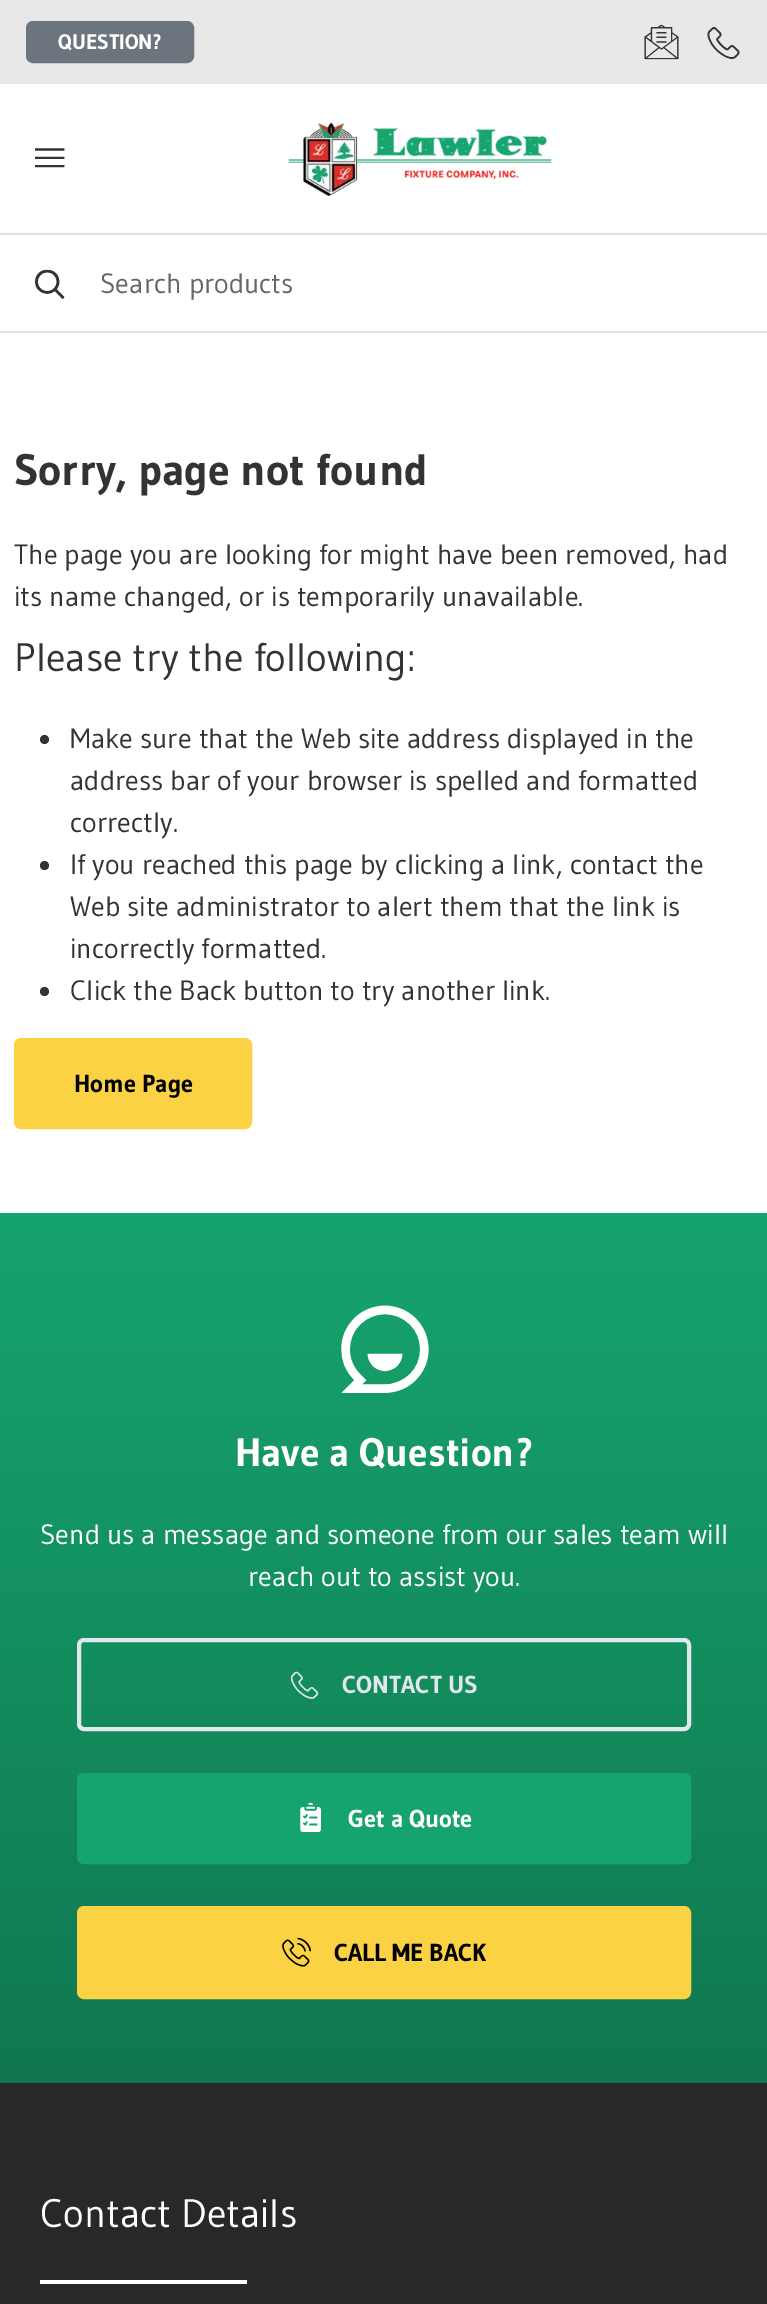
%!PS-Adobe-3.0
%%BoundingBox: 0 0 767 2304
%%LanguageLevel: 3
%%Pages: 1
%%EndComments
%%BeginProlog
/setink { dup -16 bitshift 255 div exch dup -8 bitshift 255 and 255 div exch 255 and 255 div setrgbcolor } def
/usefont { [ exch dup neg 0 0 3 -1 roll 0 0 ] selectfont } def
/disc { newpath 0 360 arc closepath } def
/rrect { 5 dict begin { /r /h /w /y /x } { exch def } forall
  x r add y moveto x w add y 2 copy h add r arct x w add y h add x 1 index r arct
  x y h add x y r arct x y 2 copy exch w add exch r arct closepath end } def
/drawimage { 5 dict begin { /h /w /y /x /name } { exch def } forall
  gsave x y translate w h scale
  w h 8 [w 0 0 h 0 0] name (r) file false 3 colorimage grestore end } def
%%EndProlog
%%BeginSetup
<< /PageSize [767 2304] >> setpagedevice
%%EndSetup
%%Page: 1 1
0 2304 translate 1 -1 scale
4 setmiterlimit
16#FFFFFF setink
0 0 767 2304 rectfill
16#E8E8E8 setink
0 0 767 84 rectfill
16#6C757D setink
28 23 164 38 5 rrect gsave fill grestore
4 setlinewidth
stroke
/Gudea-Bold 21 usefont
16#FFFFFF setink
58 49 moveto (QUESTION?) show
(img1.raw) 644 24 35 36 drawimage
(img2.raw) 707 27 33 32 drawimage
16#DEE2E6 setink
0 331 767 2 rectfill
(img3.raw) 35 148 30 20 drawimage
(img4.raw) 288 122 264 74 drawimage
0 233 767 2 rectfill
(img5.raw) 35 269 30 30 drawimage
/Gudea-Regular 28 usefont
16#666666 setink
100 293 moveto (Search products) show
/Gudea-Bold 44 usefont
16#333333 setink
14 485 moveto (Sorry, page not found) show
/Gudea-Regular 28 usefont
14 564 moveto (The page you are looking for might have been removed, had) show
14 606 moveto (its name changed, or is temporarily unavailable.) show
/Gudea-Regular 39.75 usefont
14 671 moveto (Please try the following:) show
44.5 739.5 4.5 disc fill
/Gudea-Regular 28 usefont
[
    [(Make sure that the Web site address displayed in the) 70 748]
    [(address bar of your browser is spelled and formatted) 70 790]
    [(correctly.) 70 832]
] { aload pop moveto show } forall
44.5 865.5 4.5 disc fill
[
    [(If you reached this page by clicking a link, contact the) 70 874]
    [(Web site administrator to alert them that the link is) 70 916]
    [(incorrectly formatted.) 70 958]
] { aload pop moveto show } forall
44.5 991.5 4.5 disc fill
70 1000 moveto (Click the Back button to try another link.) show
16#FBD243 setink
16 1040 234 87 5 rrect gsave fill grestore
stroke
/Gudea-Bold 24.5 usefont
16#000000 setink
74 1092 moveto (Home Page) show
gsave 0 1213 moveto 767 1213 lineto 767 2083 lineto 0 2083 lineto closepath clip newpath
<< /ShadingType 2 /ColorSpace /DeviceRGB /Coords [384 1213 384 2083] /Extend [true true] /Function << /FunctionType 2 /Domain [0 1] /C0 [0.086 0.643 0.431] /C1 [0.063 0.467 0.314] /N 1 >> >> shfill grestore
(img6.raw) 341 1305 88 88 drawimage
/Gudea-Bold 39.75 usefont
16#FFFFFF setink
235 1466 moveto (Have a Question?) show
/Gudea-Regular 28 usefont
40 1544 moveto (Send us a message and someone from our sales team will) show
248 1586 moveto (reach out to assist you.) show
16#E1E7EC setink
79 1640 610 89 5 rrect stroke
(img7.raw) 290 1671 29 28 drawimage
/Gudea-Bold 24.5 usefont
342 1693 moveto (CONTACT US) show
16#16A46E setink
79 1775 610 87 5 rrect gsave fill grestore
stroke
(img8.raw) 300 1802 21 30 drawimage
16#FFFFFF setink
348 1827 moveto (Get a Quote) show
16#FBD243 setink
79 1908 610 89 5 rrect gsave fill grestore
stroke
(img9.raw) 282 1937 29 30 drawimage
16#000000 setink
334 1961 moveto (CALL ME BACK) show
16#282828 setink
0 2083 767 221 rectfill
/Gudea-Regular 39.75 usefont
16#FFFFFF setink
40 2227 moveto (Contact Details) show
40 2280 207 4 rectfill
showpage
%%EOF
